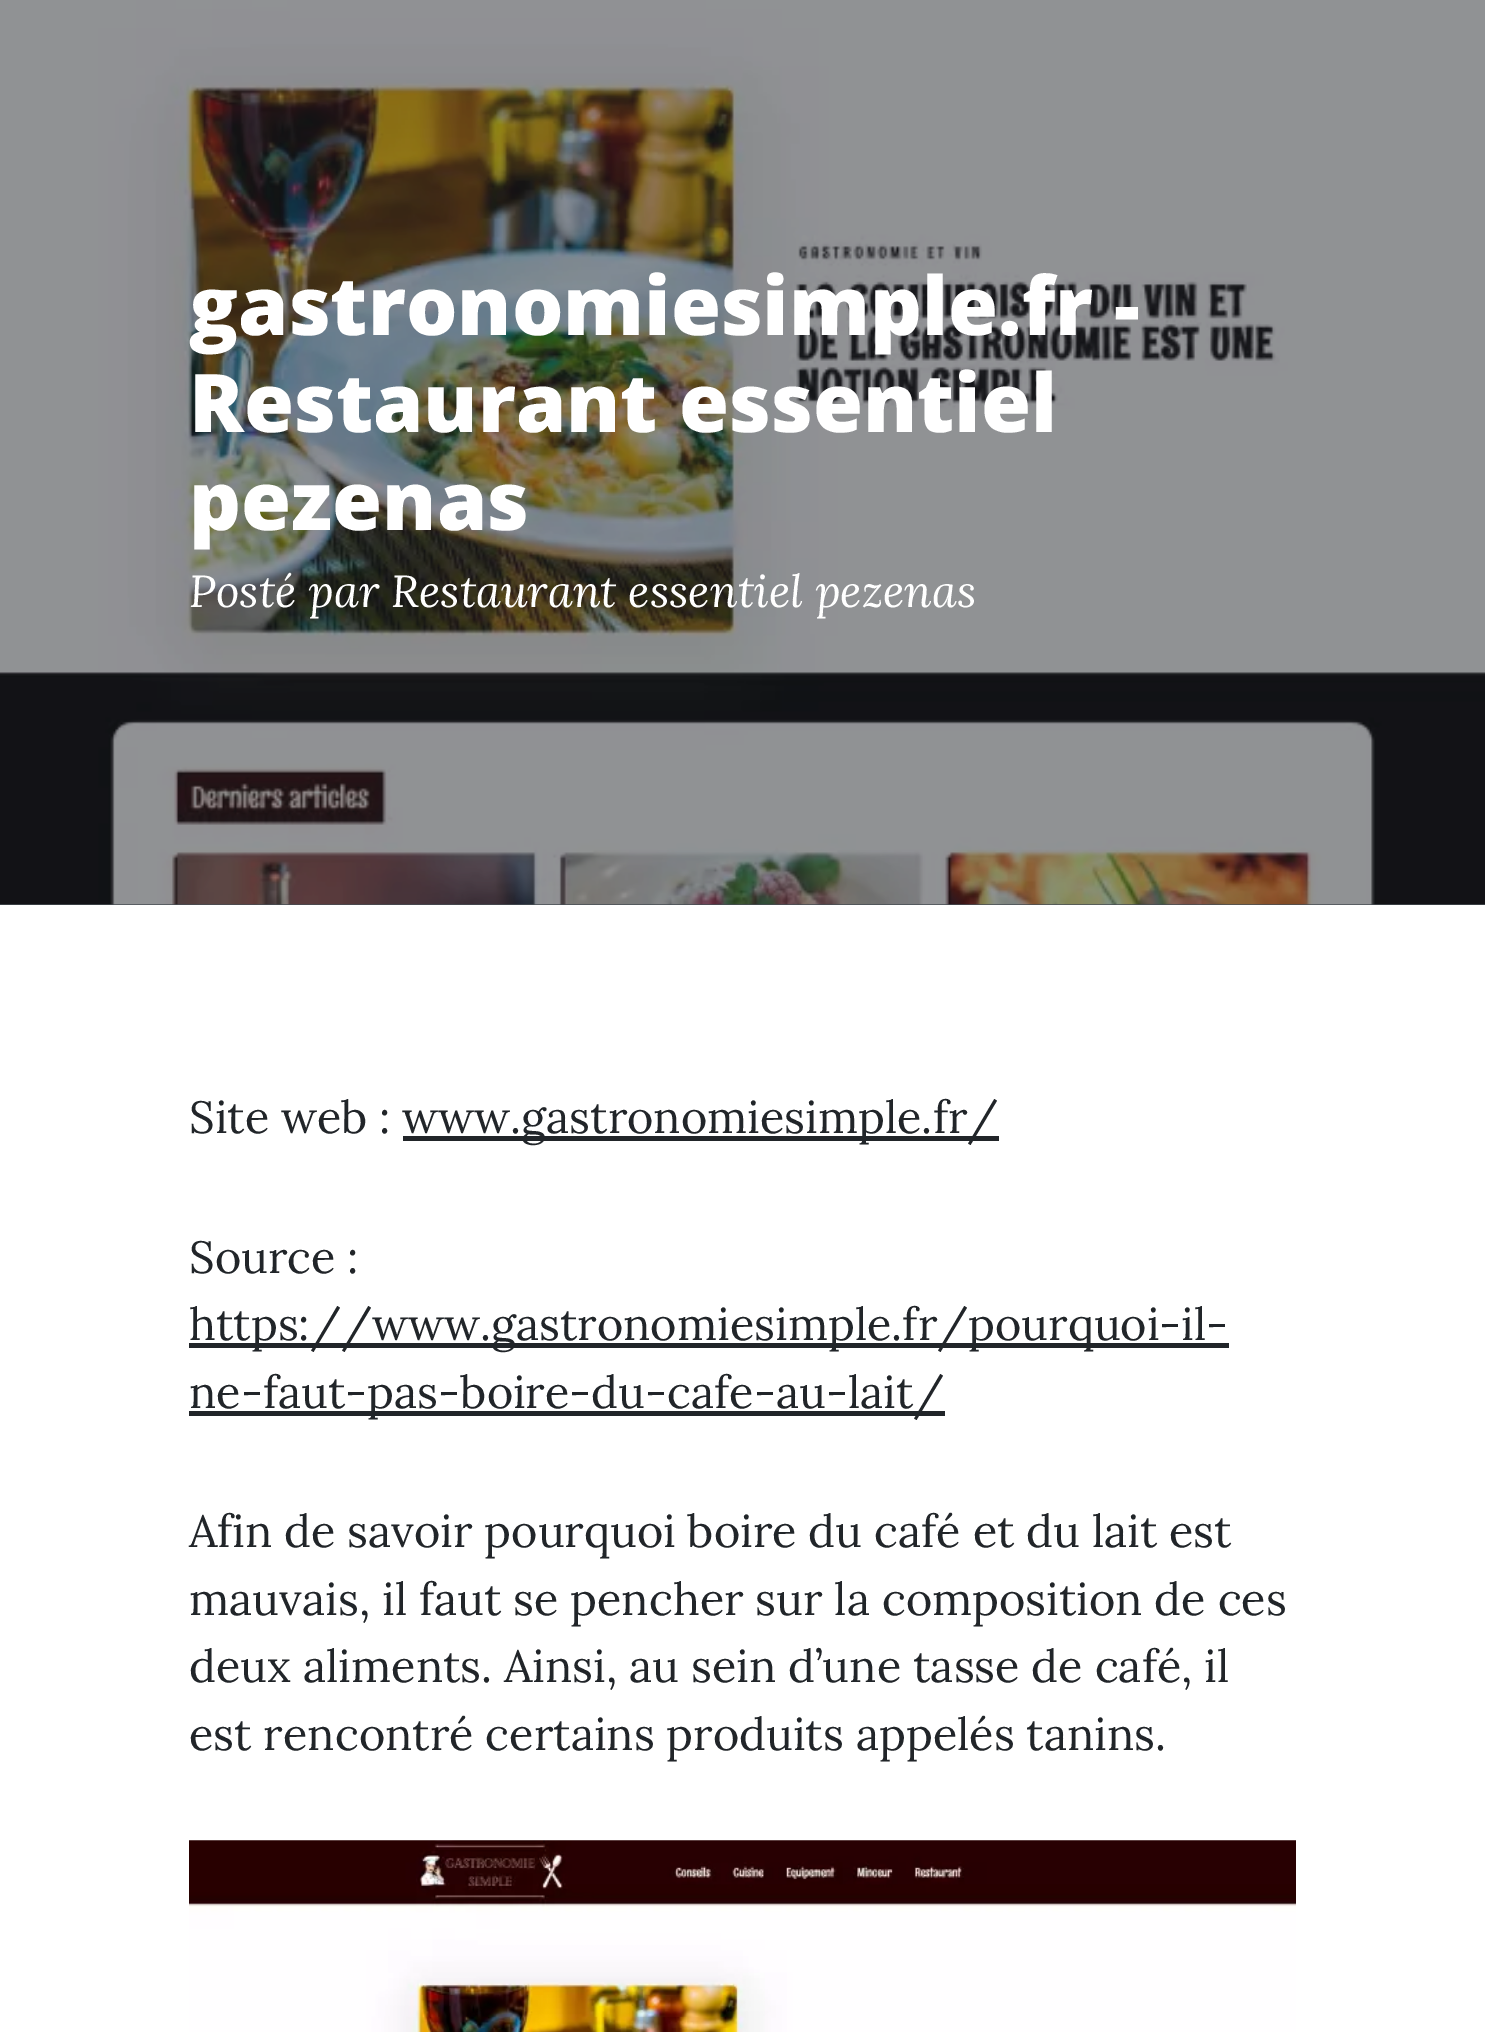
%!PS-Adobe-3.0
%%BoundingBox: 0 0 1485 2032
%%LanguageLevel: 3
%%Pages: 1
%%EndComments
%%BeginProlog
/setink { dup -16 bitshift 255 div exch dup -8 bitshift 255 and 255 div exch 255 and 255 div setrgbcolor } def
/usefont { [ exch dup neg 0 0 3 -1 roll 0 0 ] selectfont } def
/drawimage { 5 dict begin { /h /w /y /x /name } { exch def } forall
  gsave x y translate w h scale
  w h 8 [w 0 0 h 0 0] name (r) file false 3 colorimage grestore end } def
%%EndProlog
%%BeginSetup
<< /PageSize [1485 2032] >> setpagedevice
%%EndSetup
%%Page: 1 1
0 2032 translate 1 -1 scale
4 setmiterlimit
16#FFFFFF setink
0 0 1485 2032 rectfill
16#474D53 setink
0 904 1485 1 rectfill
(img1.raw) 0 0 1485 905 drawimage
/OpenSans-ExtraBold 81 usefont
16#FFFFFF setink
[
    [(gastronomiesimple.fr -) 189 335]
    [(Restaurant essentiel) 189 432]
    [(pezenas) 189 530]
] { aload pop moveto show } forall
/Lora-Italic 45 usefont
189 607 moveto (Posté par Restaurant essentiel pezenas) show
/Lora-Regular 45 usefont
16#212529 setink
189 1133 moveto (Site web :) show
403 1136 596 5 rectfill
402 1133 moveto (www.gastronomiesimple.fr/) show
189 1273 moveto (Source :) show
189 1343 1040 5 rectfill
189 1340 moveto (https://www.gastronomiesimple.fr/pourquoi-il-) show
189 1411 756 5 rectfill
[
    [(ne-faut-pas-boire-du-cafe-au-lait/) 189 1408]
    [(Afin de savoir pourquoi boire du café et du lait est) 189 1547]
    [(mauvais, il faut se pencher sur la composition de ces) 189 1615]
    [(deux aliments. Ainsi, au sein d’une tasse de café, il) 189 1682]
    [(est rencontré certains produits appelés tanins.) 189 1750]
] { aload pop moveto show } forall
(img2.raw) 189 1840 1107 192 drawimage
showpage
%%EOF
